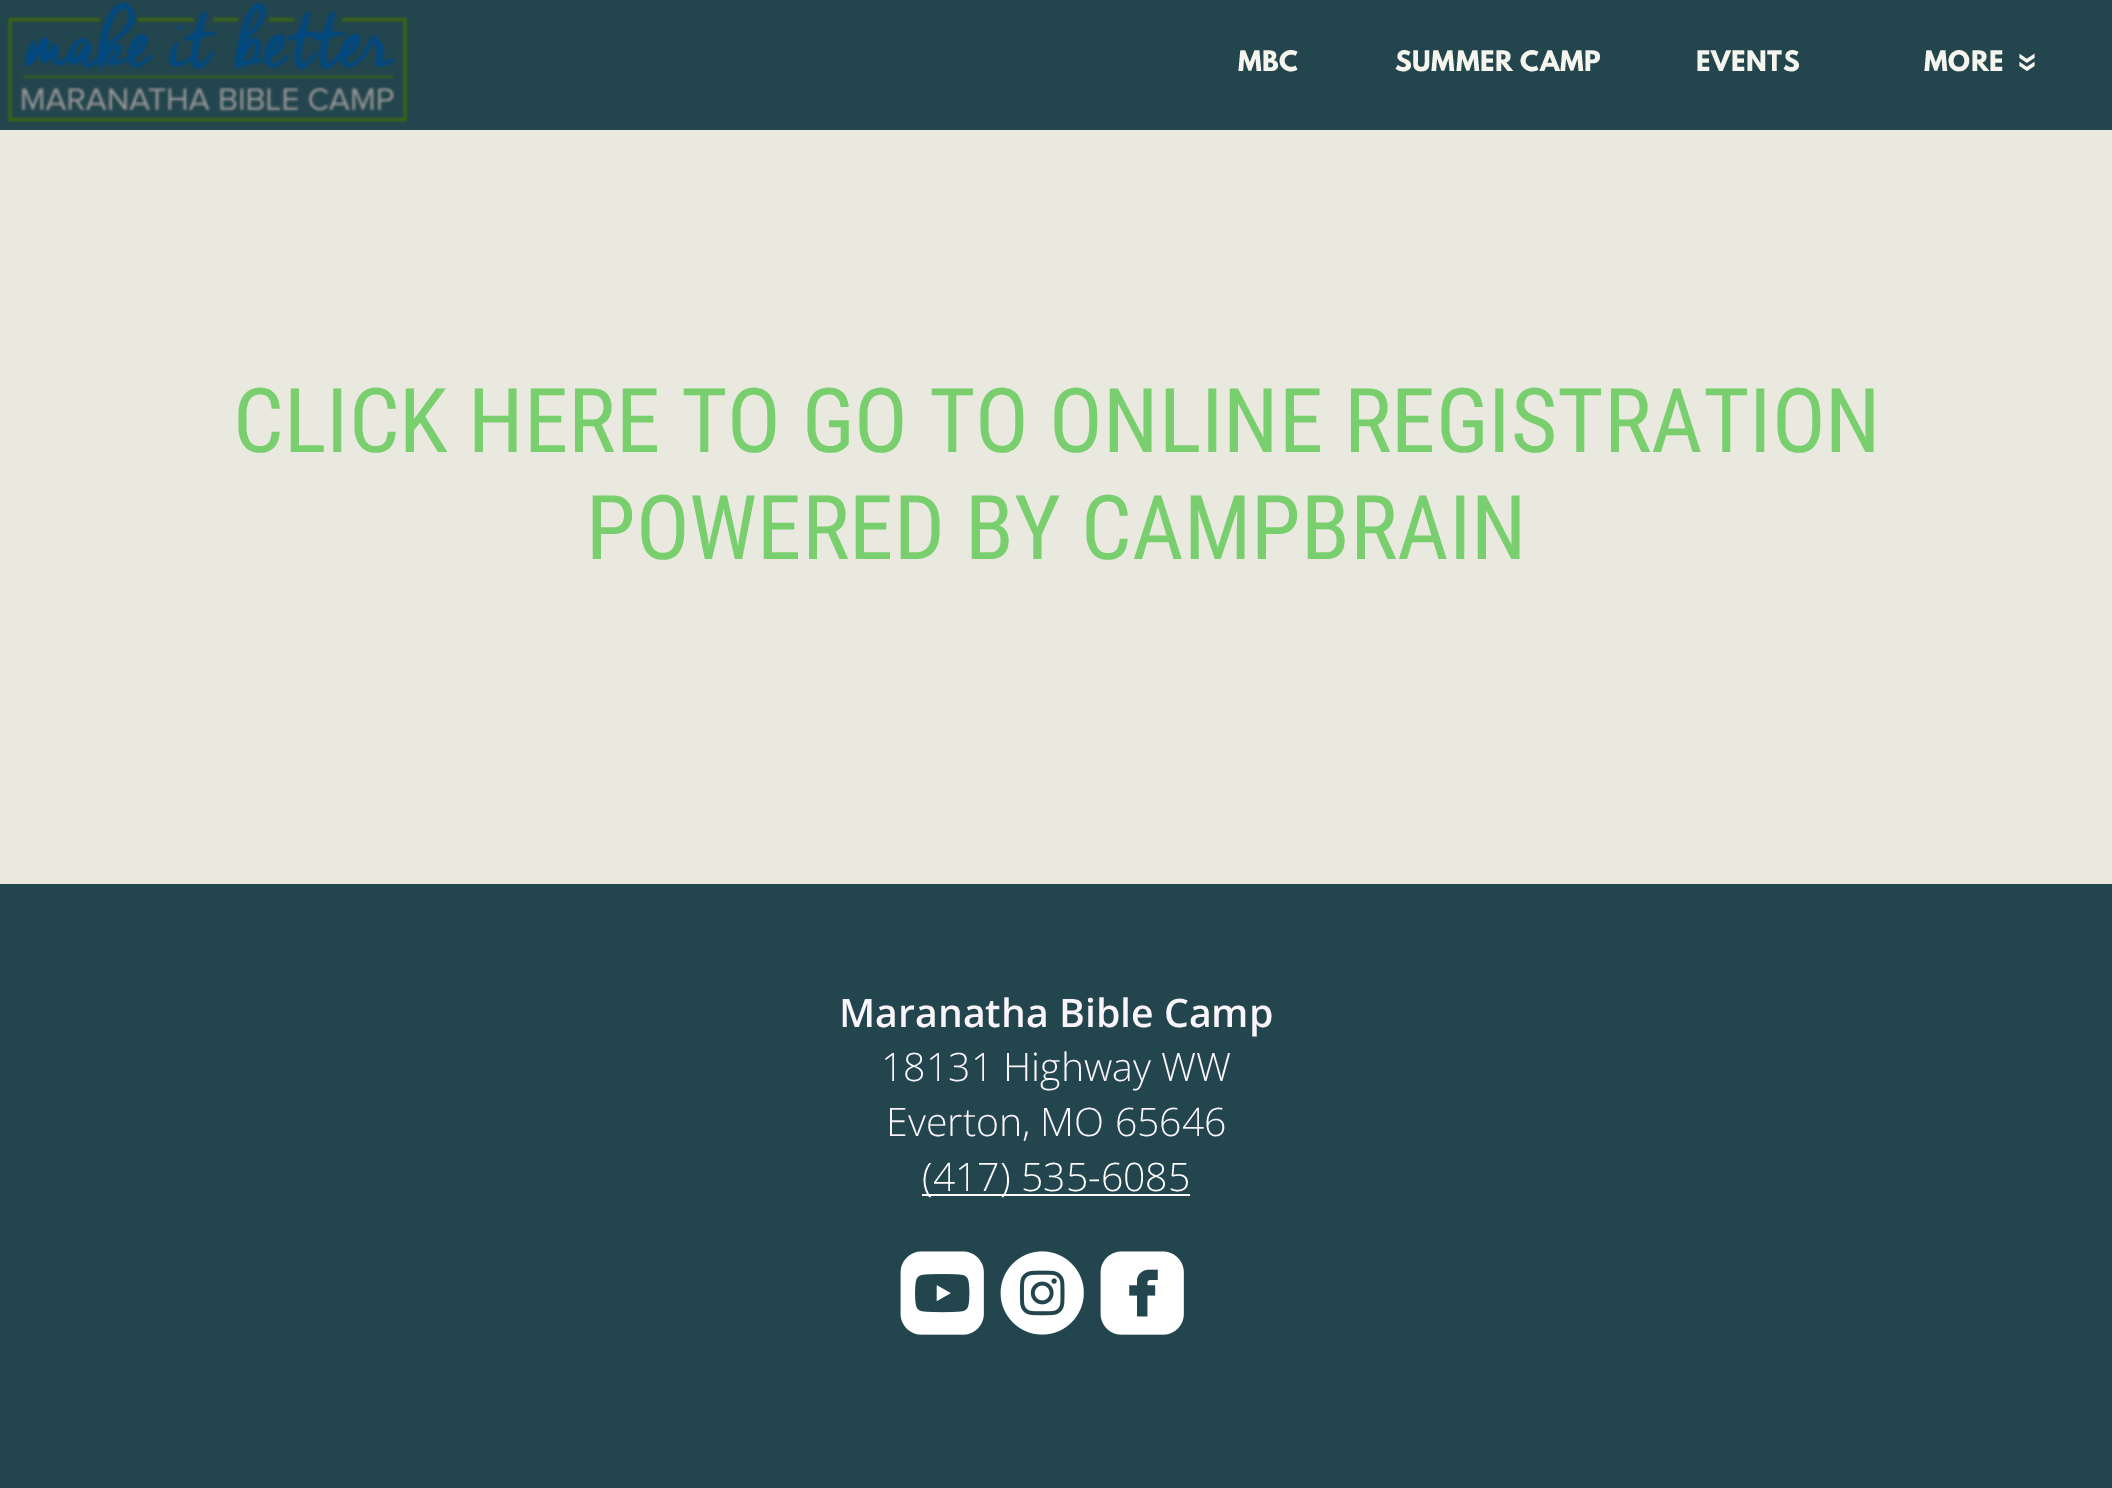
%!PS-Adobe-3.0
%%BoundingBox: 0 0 2112 1488
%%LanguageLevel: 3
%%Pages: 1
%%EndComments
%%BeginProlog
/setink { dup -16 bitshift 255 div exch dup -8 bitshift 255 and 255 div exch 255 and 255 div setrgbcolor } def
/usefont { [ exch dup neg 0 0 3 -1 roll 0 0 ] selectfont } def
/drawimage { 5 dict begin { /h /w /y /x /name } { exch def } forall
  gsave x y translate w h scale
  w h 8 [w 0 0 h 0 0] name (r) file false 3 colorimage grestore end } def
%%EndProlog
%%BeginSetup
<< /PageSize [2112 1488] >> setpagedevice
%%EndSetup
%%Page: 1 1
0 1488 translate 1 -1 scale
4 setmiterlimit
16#23454D setink
0 0 2112 1488 rectfill
(img1.raw) 7 1 402 122 drawimage
/LeagueSpartan-Bold 25 usefont
16#F5F5ED setink
1238 71 moveto 0.5 0 (MBC) ashow
1395 71 moveto 0.5 0 (SUMMER CAMP) ashow
1696 71 moveto 0.5 0 (EVENTS) ashow
1924 71 moveto 0.5 0 (MORE) ashow
(img2.raw) 2019 53 16 18 drawimage
16#E9E9E0 setink
0 130 2112 754 rectfill
/RobotoCondensed-Regular 89.4 usefont
16#79CF6E setink
233 452 moveto (CLICK HERE TO GO TO ONLINE REGISTRATION) show
586 559 moveto (POWERED BY CAMPBRAIN) show
/OpenSans-SemiBold 39.25 usefont
16#FAF5FA setink
839 1027 moveto (Maranatha Bible Camp) show
/OpenSans-Light 39.25 usefont
881 1081 moveto (18131 Highway WW) show
886 1136 moveto (Everton, MO 65646) show
16#FFFFFF setink
922 1194 268 2 rectfill
922 1191 moveto (\(417\) 535-6085) show
(img3.raw) 900 1251 84 84 drawimage
(img4.raw) 1000 1251 84 84 drawimage
(img5.raw) 1100 1251 84 84 drawimage
showpage
%%EOF
